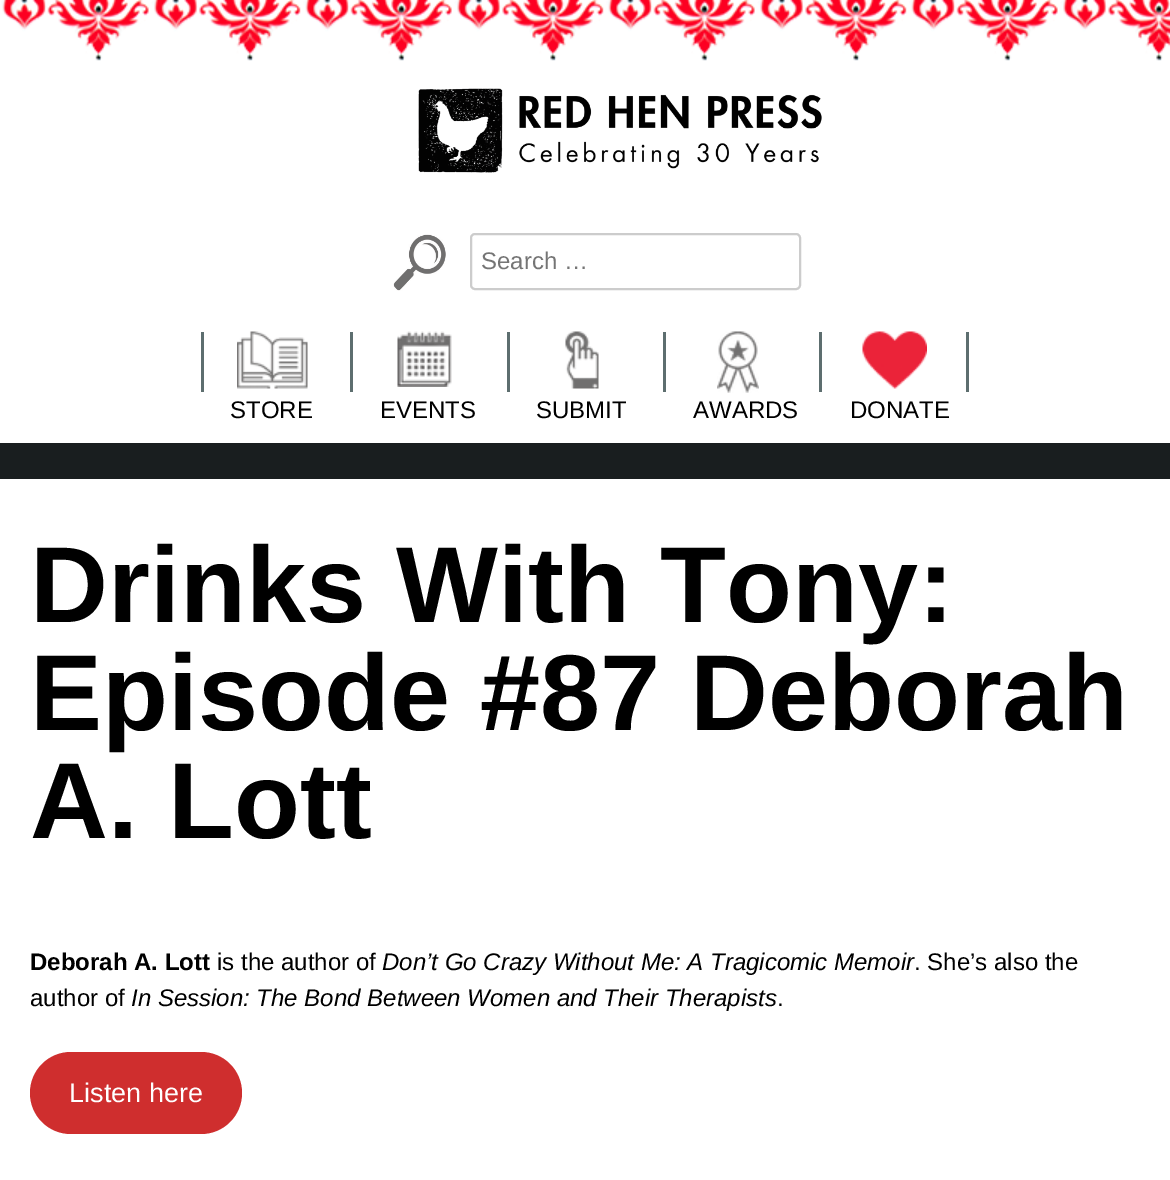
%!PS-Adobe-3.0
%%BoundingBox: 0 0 1170 1180
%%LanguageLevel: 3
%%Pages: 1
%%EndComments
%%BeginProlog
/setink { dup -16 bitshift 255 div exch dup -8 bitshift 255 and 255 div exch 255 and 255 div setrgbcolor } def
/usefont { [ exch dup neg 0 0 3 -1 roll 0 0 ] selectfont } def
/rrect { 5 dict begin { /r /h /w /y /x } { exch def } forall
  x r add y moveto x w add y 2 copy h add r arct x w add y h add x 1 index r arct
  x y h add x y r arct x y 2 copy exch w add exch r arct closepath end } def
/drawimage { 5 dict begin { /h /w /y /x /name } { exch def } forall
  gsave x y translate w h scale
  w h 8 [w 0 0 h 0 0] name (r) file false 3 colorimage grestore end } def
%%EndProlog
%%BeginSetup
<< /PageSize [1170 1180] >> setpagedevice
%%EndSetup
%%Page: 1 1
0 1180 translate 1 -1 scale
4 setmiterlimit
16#FFFFFF setink
0 0 1170 1180 rectfill
(img1.raw) 1 0 1169 61 drawimage
(img2.raw) 418 88 404 85 drawimage
(img3.raw) 393 234 53 57 drawimage
16#CCCCCC setink
2 setlinewidth
471 234 329 55 4 rrect stroke
/LiberationSans-Regular 24 usefont
16#757575 setink
481 269 moveto (Search …) show
(img4.raw) 237 331 71 58 drawimage
16#5D6E6F setink
201 332 3 60 rectfill
16#000000 setink
230 418 moveto (STORE) show
(img5.raw) 397 331 55 56 drawimage
16#5D6E6F setink
350 332 3 60 rectfill
16#000000 setink
380 418 moveto (EVENTS) show
(img6.raw) 565 331 34 58 drawimage
16#5D6E6F setink
507 332 3 60 rectfill
16#000000 setink
536 418 moveto (SUBMIT) show
(img7.raw) 717 331 42 62 drawimage
16#5D6E6F setink
663 332 3 60 rectfill
16#000000 setink
693 418 moveto (AWARDS) show
(img8.raw) 862 331 65 58 drawimage
16#5D6E6F setink
819 332 3 60 rectfill
966 332 3 60 rectfill
16#000000 setink
850 418 moveto (DONATE) show
16#191E1F setink
0 443 1170 36 rectfill
/LiberationSans-Bold 108 usefont
16#000000 setink
[
    [(Drinks With Tony:) 30 622]
    [(Episode #87 Deborah) 30 730]
    [(A. Lott) 30 838]
] { aload pop moveto show } forall
/LiberationSans-Bold 24 usefont
30 970 moveto (Deborah A. Lott) show
/LiberationSans-Regular 24 usefont
217 970 moveto (is the author of) show
/LiberationSans-Italic 24 usefont
382 970 moveto (Don’t Go Crazy Without Me: A Tragicomic Memoir) show
/LiberationSans-Regular 24 usefont
914 970 moveto (. She’s also the) show
30 1006 moveto (author of) show
/LiberationSans-Italic 24 usefont
131 1006 moveto (In Session: The Bond Between Women and Their Therapists) show
/LiberationSans-Regular 24 usefont
777 1006 moveto (.) show
16#CF2E2E setink
30 1052 212 82 41 rrect fill
/LiberationSans-Regular 27 usefont
16#FFFFFF setink
69 1102 moveto (Listen here) show
showpage
%%EOF
